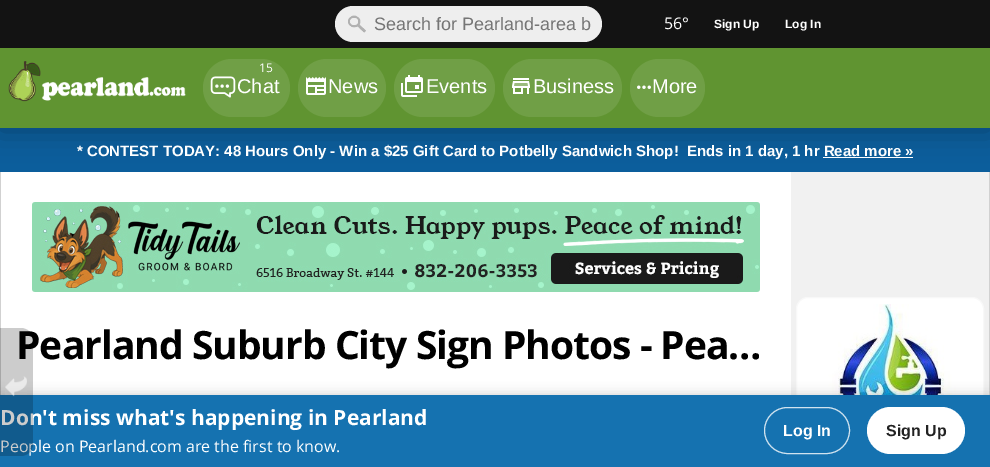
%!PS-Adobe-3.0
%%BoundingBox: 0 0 990 467
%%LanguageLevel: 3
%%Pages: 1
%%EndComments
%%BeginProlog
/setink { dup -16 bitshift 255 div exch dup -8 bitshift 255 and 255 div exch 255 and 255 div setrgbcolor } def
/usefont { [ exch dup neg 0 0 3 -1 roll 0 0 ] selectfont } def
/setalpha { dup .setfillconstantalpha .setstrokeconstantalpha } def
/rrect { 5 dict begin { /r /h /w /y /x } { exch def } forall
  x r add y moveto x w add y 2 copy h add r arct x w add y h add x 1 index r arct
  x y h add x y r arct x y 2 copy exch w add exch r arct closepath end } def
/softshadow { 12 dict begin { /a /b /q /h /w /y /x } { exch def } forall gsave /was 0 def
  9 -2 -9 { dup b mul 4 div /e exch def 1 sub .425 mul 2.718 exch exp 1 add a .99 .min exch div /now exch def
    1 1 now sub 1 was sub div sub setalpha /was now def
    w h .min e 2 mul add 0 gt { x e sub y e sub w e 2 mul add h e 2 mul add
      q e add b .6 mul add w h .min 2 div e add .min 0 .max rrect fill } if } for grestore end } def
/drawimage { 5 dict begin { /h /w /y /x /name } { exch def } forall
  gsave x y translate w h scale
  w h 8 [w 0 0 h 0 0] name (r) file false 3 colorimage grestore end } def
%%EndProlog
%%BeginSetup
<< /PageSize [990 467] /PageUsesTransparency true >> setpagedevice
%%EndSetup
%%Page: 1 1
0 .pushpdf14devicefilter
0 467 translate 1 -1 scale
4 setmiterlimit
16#0C5E9C setink
0 0 990 467 rectfill
16#FFFFFF setink
823 157 90 1 rectfill
1 172 790 223 rectfill
16#D1D1D1 setink
990 172 moveto 989 172 lineto 989 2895 lineto 988 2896 lineto 989 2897 lineto 990 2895 lineto closepath fill
0 172 moveto 1 172 lineto 1 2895 lineto 2 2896 lineto 1 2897 lineto 0 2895 lineto closepath fill
16#F1F1F1 setink
791 172 198 223 rectfill
16#000000 setink
-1 0 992 130 0 15 0.3 softshadow
16#131313 setink
0 0 990 48 rectfill
16#EEEEEE setink
335 6 267 36 18 rrect fill
(img1.raw) 348 15 18 18 drawimage
/LiberationSans-Regular 18 usefont
16#757575 setink
374 30 moveto (Search for Pearland-area b) show
/OpenSans-Regular 16 usefont
16#FFFFFF setink
664 29 moveto (56°) show
/LiberationSans-Bold 12 usefont
714 28 moveto (Sign Up) show
785 28 moveto (Log In) show
16#609431 setink
0 48 990 80 rectfill
(img2.raw) 8 61 178 41 drawimage
16#709F46 setink
203 59 87 58 29 rrect fill
/OpenSans-Regular 12 usefont
16#FFFFFF setink
259 72 moveto (15) show
(img3.raw) 210 76 26 22 drawimage
/LiberationSans-Regular 20 usefont
237 93 moveto (Chat) show
16#709F46 setink
298 59 88 58 29 rrect fill
(img4.raw) 306 77 20 18 drawimage
16#FFFFFF setink
328 93 moveto (News) show
16#709F46 setink
394 59 101 58 29 rrect fill
(img5.raw) 401 75 22 22 drawimage
16#FFFFFF setink
426 93 moveto (Events) show
16#709F46 setink
503 59 119 58 29 rrect fill
(img6.raw) 512 78 18 16 drawimage
16#FFFFFF setink
533 93 moveto (Business) show
16#709F46 setink
630 59 75 58 29 rrect fill
(img7.raw) 637 85 14 4 drawimage
16#FFFFFF setink
652 93 moveto (More) show
/LiberationSans-Bold 15 usefont
77 156 moveto (* CONTEST TODAY: 48 Hours Only - Win a $25 Gift Card to Potbelly Sandwich Shop!) show
687 156 moveto (Ends in 1 day, 1 hr Read more ») show
/OpenSans-Bold 39 usefont
16#000000 setink
16 359 moveto -1 0 (Pearland Suburb City Sign Photos - Pea…) ashow
16#FFFFFF setink
796.5 297.5 187 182 11.5 rrect gsave fill grestore
16#F8F8F8 setink
stroke
(img10.raw) 809 304 165 91 drawimage
16#000000 setink
0 395 990 72 0 6 0.2 softshadow
16#1572B0 setink
0 395 990 72 rectfill
/OpenSans-Bold 21 usefont
16#FFFFFF setink
0 425 moveto (Don't miss what's happening in Pearland) show
/OpenSans-Regular 16 usefont
0 452 moveto (People on Pearland.com are the first to know.) show
0.2 setalpha
16#000000 setink
0 328 moveto 21 328 lineto 27.5 328 33 333.5 33 340 curveto 33 444 lineto 33 450.5 27.5 456 21 456 curveto 0 456 lineto closepath fill
1 setalpha
(img8.raw) 5 376 22 21 drawimage
(img9.raw) 32 202 728 90 drawimage
16#D0E3EF setink
764.5 407.5 85 46 23 rrect stroke
/LiberationSans-Bold 16 usefont
16#FFFFFF setink
783 436 moveto (Log In) show
867 407 98 47 23.5 rrect fill
16#222222 setink
886 436 moveto (Sign Up) show
.poppdf14devicefilter showpage
%%EOF
